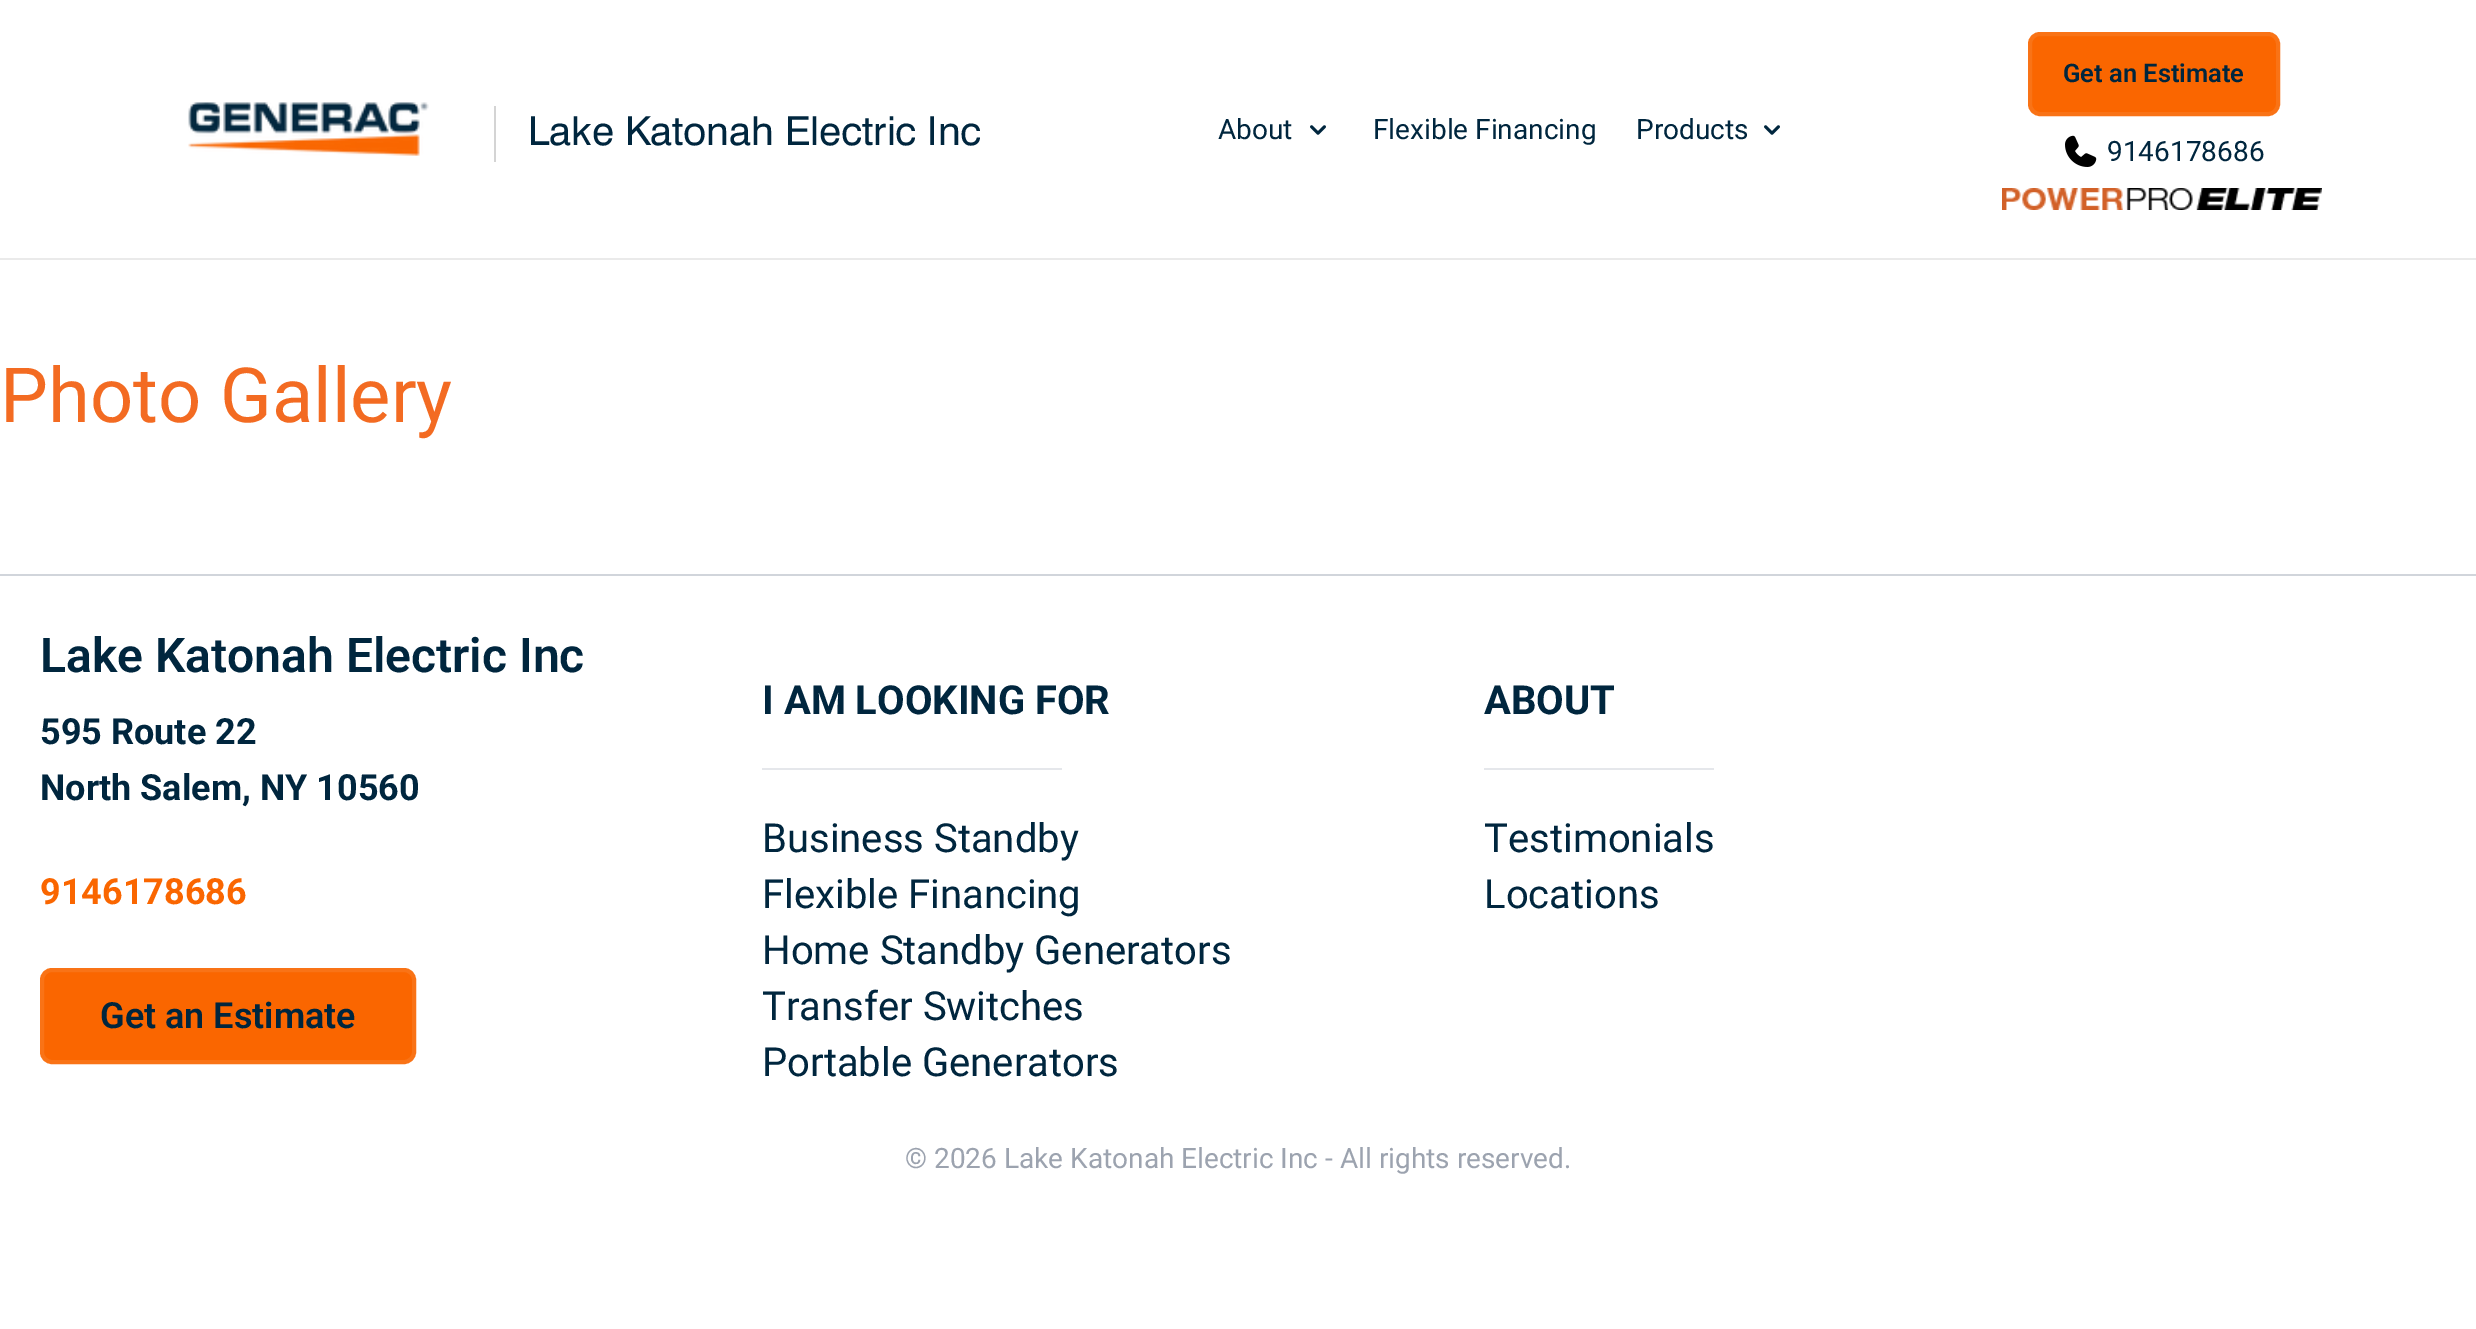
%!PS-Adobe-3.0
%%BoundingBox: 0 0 2476 1329
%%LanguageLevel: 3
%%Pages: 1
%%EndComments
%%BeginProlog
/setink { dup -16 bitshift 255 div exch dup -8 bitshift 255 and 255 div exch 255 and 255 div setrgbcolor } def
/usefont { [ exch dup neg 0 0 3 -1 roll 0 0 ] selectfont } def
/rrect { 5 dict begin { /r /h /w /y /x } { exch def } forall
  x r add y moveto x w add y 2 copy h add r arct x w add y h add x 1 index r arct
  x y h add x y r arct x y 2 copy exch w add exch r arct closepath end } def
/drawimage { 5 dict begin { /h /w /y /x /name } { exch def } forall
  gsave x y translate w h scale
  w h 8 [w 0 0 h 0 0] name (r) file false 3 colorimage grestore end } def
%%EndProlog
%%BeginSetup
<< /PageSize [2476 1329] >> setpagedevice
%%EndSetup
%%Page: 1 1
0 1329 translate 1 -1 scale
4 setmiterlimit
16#FFFFFF setink
0 0 2476 1329 rectfill
16#EAEAEA setink
0 258 2476 2 rectfill
(img1.raw) 188 102 241 54 drawimage
16#D4D4D4 setink
494 106 2 56 rectfill
/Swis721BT-Regular 40 usefont
16#00263E setink
528 145 moveto (Lake Katonah Electric Inc) show
/Roboto-Regular 28 usefont
1218 139 moveto (About) show
(img2.raw) 1310 125 16 10 drawimage
1373 139 moveto (Flexible Financing) show
1636 139 moveto (Products) show
(img2.raw) 1764 125 16 10 drawimage
16#FA6600 setink
2030 34 248 80 10 rrect gsave fill grestore
16#F97316 setink
4 setlinewidth
stroke
/Roboto-SemiBold 25.5 usefont
16#00263E setink
2063 82 moveto (Get an Estimate) show
(img3.raw) 2065 135 32 32 drawimage
/Roboto-Regular 28 usefont
2107 161 moveto (9146178686) show
(img4.raw) 2002 188 320 22 drawimage
/Roboto-Regular 76 usefont
16#F36B22 setink
0 422 moveto (Photo Gallery) show
16#D1D5DB setink
0 574 2476 2 rectfill
/Roboto-SemiBold 48 usefont
16#00263E setink
40 672 moveto (Lake Katonah Electric Inc) show
/Roboto-Bold 36 usefont
40 744 moveto (595 Route 22) show
40 800 moveto (North Salem, NY 10560) show
16#FA6600 setink
40 904 moveto (9146178686) show
42 970 372 92 10 rrect gsave fill grestore
16#F97316 setink
stroke
/Roboto-SemiBold 36 usefont
16#00263E setink
100 1028 moveto (Get an Estimate) show
/Roboto-Bold 40 usefont
762 714 moveto (I AM LOOKING FOR) show
16#E5E7EB setink
762 768 300 2 rectfill
/Roboto-Regular 40 usefont
16#00263E setink
[
    [(Business Standby) 762 852]
    [(Flexible Financing) 762 908]
    [(Home Standby Generators) 762 964]
    [(Transfer Switches) 762 1020]
    [(Portable Generators) 762 1076]
] { aload pop moveto show } forall
/Roboto-Bold 40 usefont
1484 714 moveto (ABOUT) show
16#E5E7EB setink
1484 768 230 2 rectfill
/Roboto-Regular 40 usefont
16#00263E setink
1484 852 moveto (Testimonials) show
1484 908 moveto (Locations) show
/Roboto-Regular 28 usefont
16#9CA3AF setink
905 1168 moveto (© 2026 Lake Katonah Electric Inc - All rights reserved.) show
showpage
%%EOF
